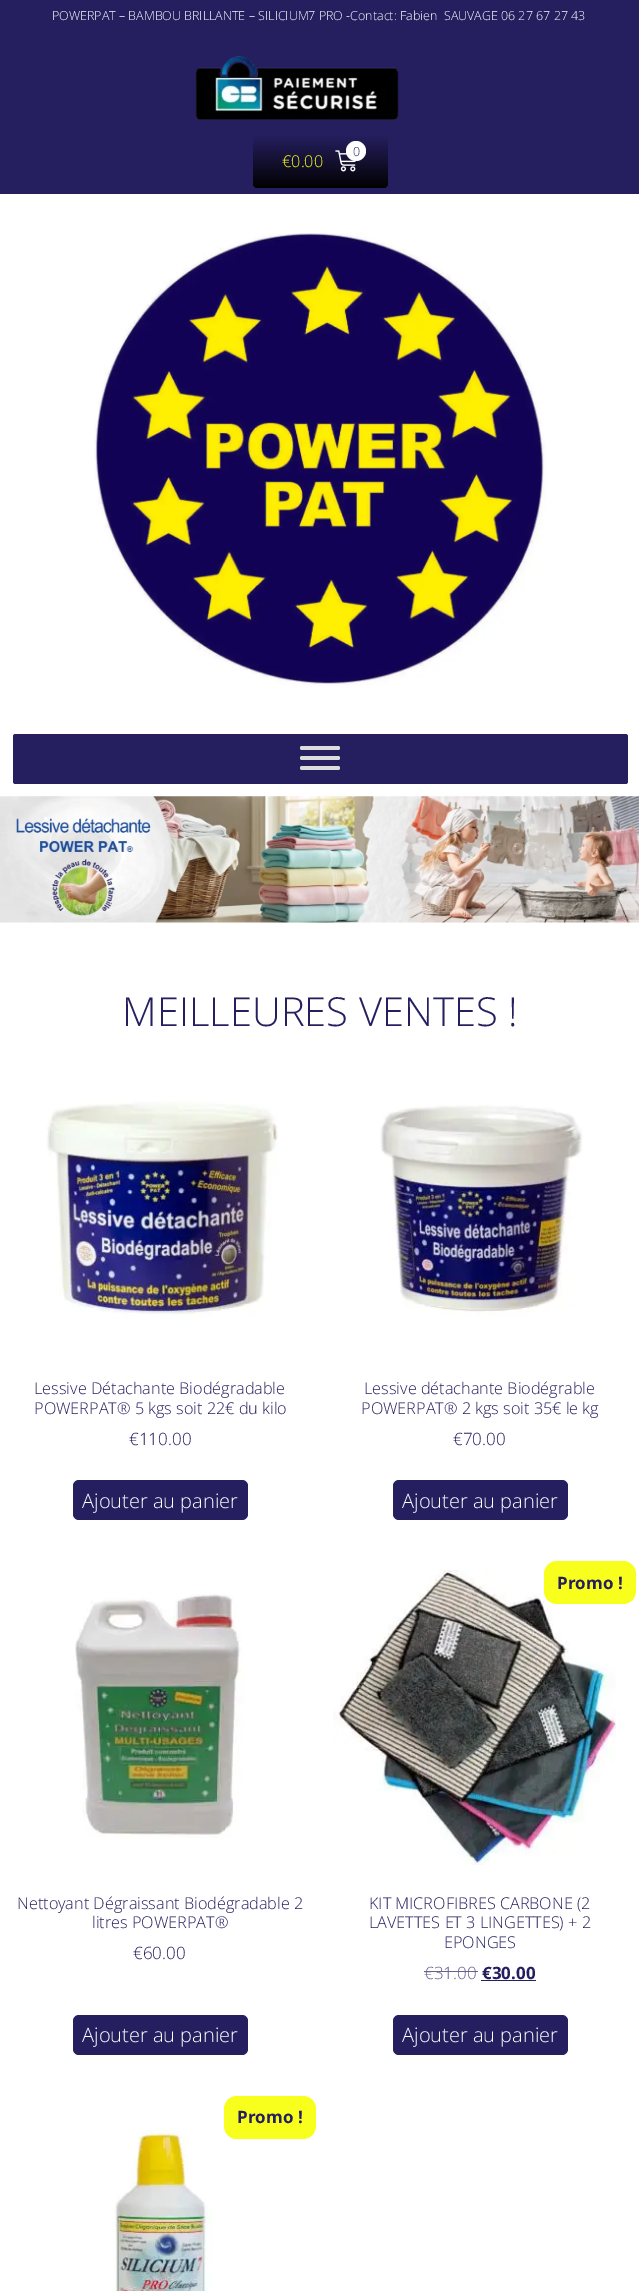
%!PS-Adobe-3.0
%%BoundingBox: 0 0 639 2291
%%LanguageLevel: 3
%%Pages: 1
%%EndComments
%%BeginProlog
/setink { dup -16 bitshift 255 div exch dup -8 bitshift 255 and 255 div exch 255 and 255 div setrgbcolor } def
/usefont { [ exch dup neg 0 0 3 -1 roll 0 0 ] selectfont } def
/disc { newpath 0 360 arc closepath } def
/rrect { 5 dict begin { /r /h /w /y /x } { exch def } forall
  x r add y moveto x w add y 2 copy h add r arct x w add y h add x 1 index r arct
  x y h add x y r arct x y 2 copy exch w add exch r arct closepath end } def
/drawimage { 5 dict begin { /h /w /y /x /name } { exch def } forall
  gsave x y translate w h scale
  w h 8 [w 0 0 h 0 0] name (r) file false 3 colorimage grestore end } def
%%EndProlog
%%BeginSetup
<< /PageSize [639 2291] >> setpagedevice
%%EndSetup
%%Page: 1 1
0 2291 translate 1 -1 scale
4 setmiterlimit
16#FFFFFF setink
0 0 639 2291 rectfill
16#251F60 setink
0 0 639 194 rectfill
/OpenSans-Light 12.5 usefont
16#FFFFFF setink
52 20 moveto (POWERPAT – BAMBOU BRILLANTE – SILICIUM7 PRO -Contact: Fabien  SAUVAGE 06 27 67 27 43) show
(img1.raw) 195 56 204 65 drawimage
gsave 253 135 135 53 5 rrect clip newpath
<< /ShadingType 2 /ColorSpace /DeviceRGB /Coords [320 135 320 188] /Extend [true true] /Function << /FunctionType 2 /Domain [0 1] /C0 [0.145 0.122 0.376] /C1 [0.008 0.004 0.004] /N 1 >> >> shfill grestore
(img2.raw) 335 150 22 22 drawimage
356 151 10 disc fill
16#251F60 setink
353 156 moveto (0) show
/OpenSans-Light 16.25 usefont
16#F9FF1C setink
282 167 moveto (€0.00) show
(img3.raw) 94 233 453 453 drawimage
16#251F60 setink
13 734 615 50 2.5 rrect fill
16#DDDDDD setink
300 746 40 4 2 rrect fill
300 756 40 4 2 rrect fill
300 766 40 4 2 rrect fill
(img4.raw) 0 796 639 127 drawimage
/OpenSans-Light 40 usefont
16#251F60 setink
122 1026 moveto (MEILLEURES VENTES !) show
(img5.raw) 46 1101 233 218 drawimage
/OpenSans-Light 16.25 usefont
34 1394 moveto (Lessive Détachante Biodégradable) show
34 1414 moveto (POWERPAT® 5 kgs soit 22€ du kilo) show
/OpenSans-Light 17 usefont
129 1445 moveto (€110.00) show
73 1480 175 40 6 rrect fill
/OpenSans-Light 20 usefont
16#FFFFFF setink
82 1508 moveto (Ajouter au panier) show
(img6.raw) 380 1104 203 212 drawimage
/OpenSans-Light 16.25 usefont
16#251F60 setink
364 1394 moveto (Lessive détachante Biodégrable) show
361 1414 moveto (POWERPAT® 2 kgs soit 35€ le kg) show
/OpenSans-Light 17 usefont
453 1445 moveto (€70.00) show
393 1480 175 40 6 rrect fill
/OpenSans-Light 20 usefont
16#FFFFFF setink
402 1508 moveto (Ajouter au panier) show
(img7.raw) 75 1594 169 245 drawimage
/OpenSans-Light 16.25 usefont
16#251F60 setink
17 1909 moveto (Nettoyant Dégraissant Biodégradable 2) show
92 1928 moveto (litres POWERPAT®) show
/OpenSans-Light 17 usefont
133 1959 moveto (€60.00) show
73 2015 175 40 6 rrect fill
/OpenSans-Light 20 usefont
16#FFFFFF setink
82 2042 moveto (Ajouter au panier) show
(img8.raw) 333 1570 283 295 drawimage
16#F9FF1C setink
544 1561 92 43 13 rrect fill
/OpenSans-Bold 17 usefont
16#251F60 setink
557 1589 moveto (Promo !) show
/OpenSans-Light 16.25 usefont
[
    [(KIT MICROFIBRES CARBONE \(2) 369 1909]
    [(LAVETTES ET 3 LINGETTES\) + 2) 369 1928]
    [(EPONGES) 444 1948]
] { aload pop moveto show } forall
/OpenSans-Light 17 usefont
16#666290 setink
424 1979 moveto (€31.00) show
424 1971 54 1 rectfill
/OpenSans-Bold 17 usefont
16#251F60 setink
482 1979 moveto (€30.00) show
481 1980 55 1 rectfill
393 2015 175 40 6 rrect fill
/OpenSans-Light 20 usefont
16#FFFFFF setink
402 2042 moveto (Ajouter au panier) show
16#F9FF1C setink
224 2096 92 43 13 rrect fill
/OpenSans-Bold 17 usefont
16#251F60 setink
237 2123 moveto (Promo !) show
(img9.raw) 114 2128 99 163 drawimage
showpage
%%EOF
